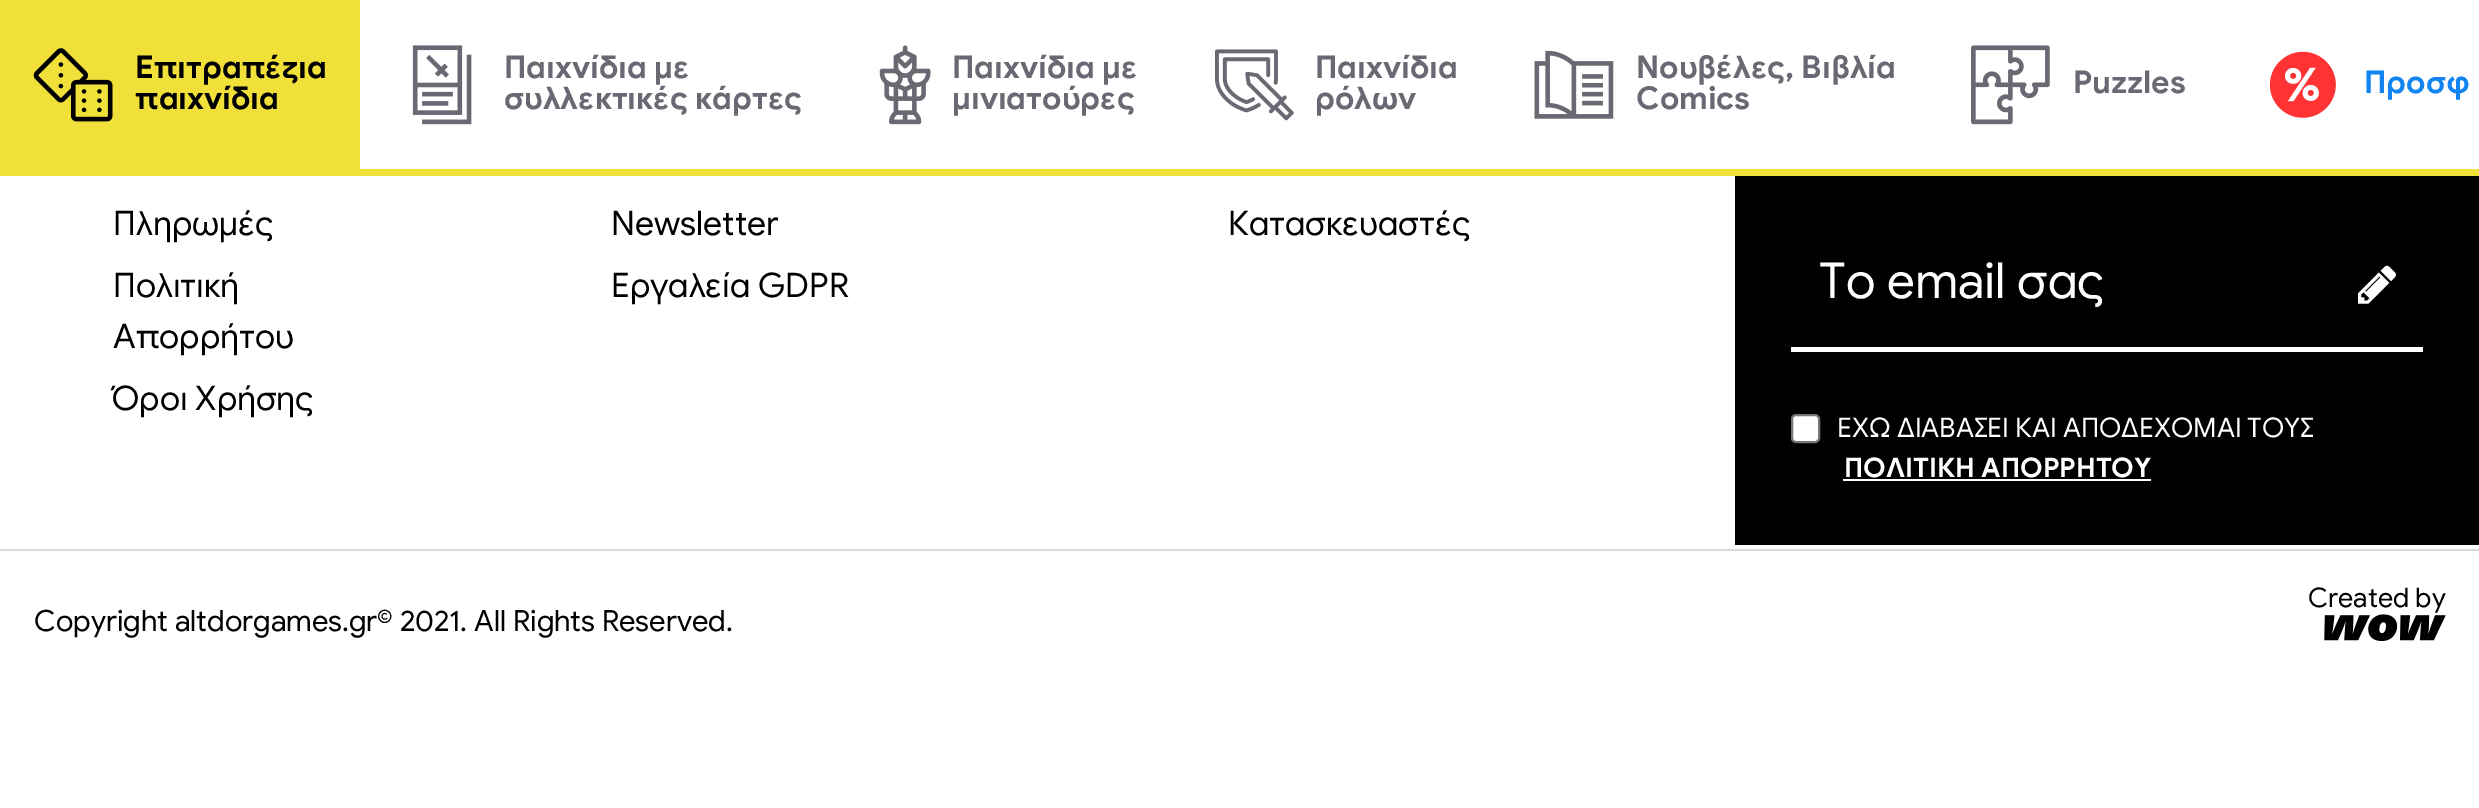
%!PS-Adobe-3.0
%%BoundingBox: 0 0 2479 808
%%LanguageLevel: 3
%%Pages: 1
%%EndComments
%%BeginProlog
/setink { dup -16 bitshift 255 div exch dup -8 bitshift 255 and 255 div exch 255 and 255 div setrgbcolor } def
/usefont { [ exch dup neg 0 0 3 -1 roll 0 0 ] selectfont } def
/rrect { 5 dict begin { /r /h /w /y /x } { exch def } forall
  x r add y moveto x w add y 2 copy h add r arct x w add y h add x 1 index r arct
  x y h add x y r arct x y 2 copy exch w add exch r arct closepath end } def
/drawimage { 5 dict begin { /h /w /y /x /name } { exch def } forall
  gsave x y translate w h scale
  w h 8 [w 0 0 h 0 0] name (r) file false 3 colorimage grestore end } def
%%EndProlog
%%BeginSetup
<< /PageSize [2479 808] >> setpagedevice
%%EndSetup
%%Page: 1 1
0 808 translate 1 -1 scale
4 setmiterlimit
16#FFFFFF setink
0 0 2479 808 rectfill
16#F1E039 setink
0 169 2479 7 rectfill
0 0 360 169 rectfill
(img1.raw) 33 48 80 74 drawimage
/GoogleSans-Bold 31.5 usefont
16#000000 setink
135 78 moveto (Επιτραπέζια) show
135 109 moveto (παιχνίδια) show
(img2.raw) 412 45 60 80 drawimage
16#696973 setink
504 78 moveto (Παιχνίδια με) show
504 109 moveto (συλλεκτικές κάρτες) show
(img3.raw) 879 45 52 80 drawimage
952 78 moveto (Παιχνίδια με) show
952 109 moveto (μινιατούρες) show
(img4.raw) 1215 49 79 72 drawimage
1315 78 moveto (Παιχνίδια) show
1315 109 moveto (ρόλων) show
(img5.raw) 1534 50 80 69 drawimage
1636 78 moveto (Νουβέλες, Βιβλία) show
1636 109 moveto (Comics) show
(img6.raw) 1971 45 79 80 drawimage
2073 93 moveto (Puzzles) show
(img7.raw) 2269 51 67 67 drawimage
16#1184F2 setink
2364 93 moveto (Προσφ) show
/GoogleSans-Regular 33.75 usefont
16#000000 setink
[
    [(Πληρωμές) 113 235]
    [(Πολιτική) 113 297]
    [(Απορρήτου) 113 348]
    [(Όροι Χρήσης) 113 410]
    [(Newsletter) 611 235]
    [(Εργαλεία GDPR) 611 297]
    [(Κατασκευαστές) 1228 235]
] { aload pop moveto show } forall
1735 176 744 369 rectfill
16#FFFFFF setink
1791 347 632 5 rectfill
/GoogleSans-Regular 49.5 usefont
1819 298 moveto (Το email σας) show
(img8.raw) 2358 265 38 39 drawimage
1792 415 27 27 4 rrect gsave fill grestore
16#767676 setink
2 setlinewidth
stroke
/GoogleSans-Regular 27 usefont
16#FFFFFF setink
1837 437 moveto (ΕΧΩ ΔΙΑΒΑΣΕΙ ΚΑΙ ΑΠΟΔΕΧΟΜΑΙ ΤΟΥΣ) show
/GoogleSans-Bold 27 usefont
1844 477 moveto (ΠΟΛΙΤΙΚΗ ΑΠΟΡΡΗΤΟΥ) show
1843 479 308 2 rectfill
16#DADADA setink
0 549 2479 2 rectfill
/GoogleSans-Regular 27 usefont
16#000000 setink
2308 607 moveto (Created by) show
(img9.raw) 2324 614 122 27 drawimage
/GoogleSans-Regular 29.25 usefont
34 631 moveto (Copyright altdorgames.gr© 2021. All Rights Reserved.) show
showpage
%%EOF
